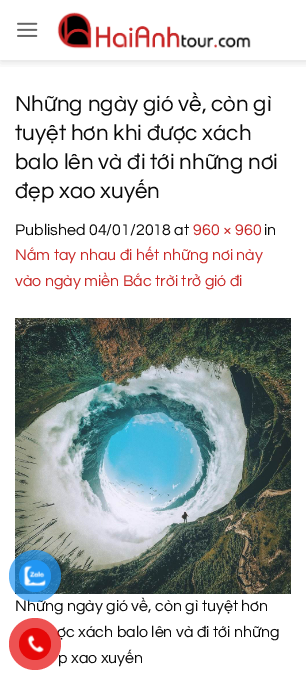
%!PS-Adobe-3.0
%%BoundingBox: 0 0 306 687
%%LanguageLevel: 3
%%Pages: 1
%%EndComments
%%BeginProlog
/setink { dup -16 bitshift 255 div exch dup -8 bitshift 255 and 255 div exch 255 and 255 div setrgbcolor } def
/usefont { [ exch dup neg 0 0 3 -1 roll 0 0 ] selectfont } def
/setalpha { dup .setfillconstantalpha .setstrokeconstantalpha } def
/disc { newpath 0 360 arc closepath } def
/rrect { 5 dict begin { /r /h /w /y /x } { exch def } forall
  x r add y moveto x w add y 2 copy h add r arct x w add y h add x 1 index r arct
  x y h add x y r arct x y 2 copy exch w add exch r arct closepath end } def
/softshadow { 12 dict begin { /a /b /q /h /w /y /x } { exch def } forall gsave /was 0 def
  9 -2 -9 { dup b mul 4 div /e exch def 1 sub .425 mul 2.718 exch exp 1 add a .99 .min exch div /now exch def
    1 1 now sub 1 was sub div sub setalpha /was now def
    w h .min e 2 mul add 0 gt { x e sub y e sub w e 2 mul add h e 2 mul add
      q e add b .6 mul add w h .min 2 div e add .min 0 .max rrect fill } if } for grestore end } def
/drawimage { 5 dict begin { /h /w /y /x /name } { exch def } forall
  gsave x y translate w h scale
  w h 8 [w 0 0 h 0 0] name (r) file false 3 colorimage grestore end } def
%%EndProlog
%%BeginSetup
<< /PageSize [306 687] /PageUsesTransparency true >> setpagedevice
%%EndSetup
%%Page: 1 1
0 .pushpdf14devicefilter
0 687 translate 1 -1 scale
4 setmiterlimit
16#FFFFFF setink
0 0 306 687 rectfill
gsave
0 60 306 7 rectclip
16#000000 setink
1 1 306 60 0 5 0.15 softshadow
grestore
(img1.raw) 17 22 21 15 drawimage
(img2.raw) 57 12 194 37 drawimage
/Questrial-Regular 22.4 usefont
16#0A0A0A setink
[
    [(Những ngày gió về, còn gì) 15 111]
    [(tuyệt hơn khi được xách) 15 140]
    [(balo lên và đi tới những nơi) 15 169]
    [(đẹp xao xuyến) 15 198]
] { aload pop moveto show } forall
/Questrial-Regular 16 usefont
15 235 moveto (Published 04/01/2018 at) show
16#C82826 setink
193 235 moveto (960 × 960) show
16#0A0A0A setink
264 235 moveto (in) show
16#C82826 setink
15 260 moveto (Nắm tay nhau đi hết những nơi này) show
15 286 moveto (vào ngày miền Bắc trời trở gió đi) show
(img3.raw) 15 318 276 276 drawimage
16#0A0A0A setink
[
    [(Những ngày gió về, còn gì tuyệt hơn) 15 611]
    [(ợc xách balo lên và đi tới những) 57 637]
    [(p xao xuyến) 58 663]
] { aload pop moveto show } forall
0.7 setalpha
16#2196F3 setink
35 576 26 disc fill
1 setalpha
35 576 16 disc fill
(img4.raw) 23 565 23 22 drawimage
0.7 setalpha
16#E60808 setink
35 644 26 disc fill
1 setalpha
35 644 16 disc fill
(img5.raw) 27 635 17 18 drawimage
.poppdf14devicefilter showpage
%%EOF
